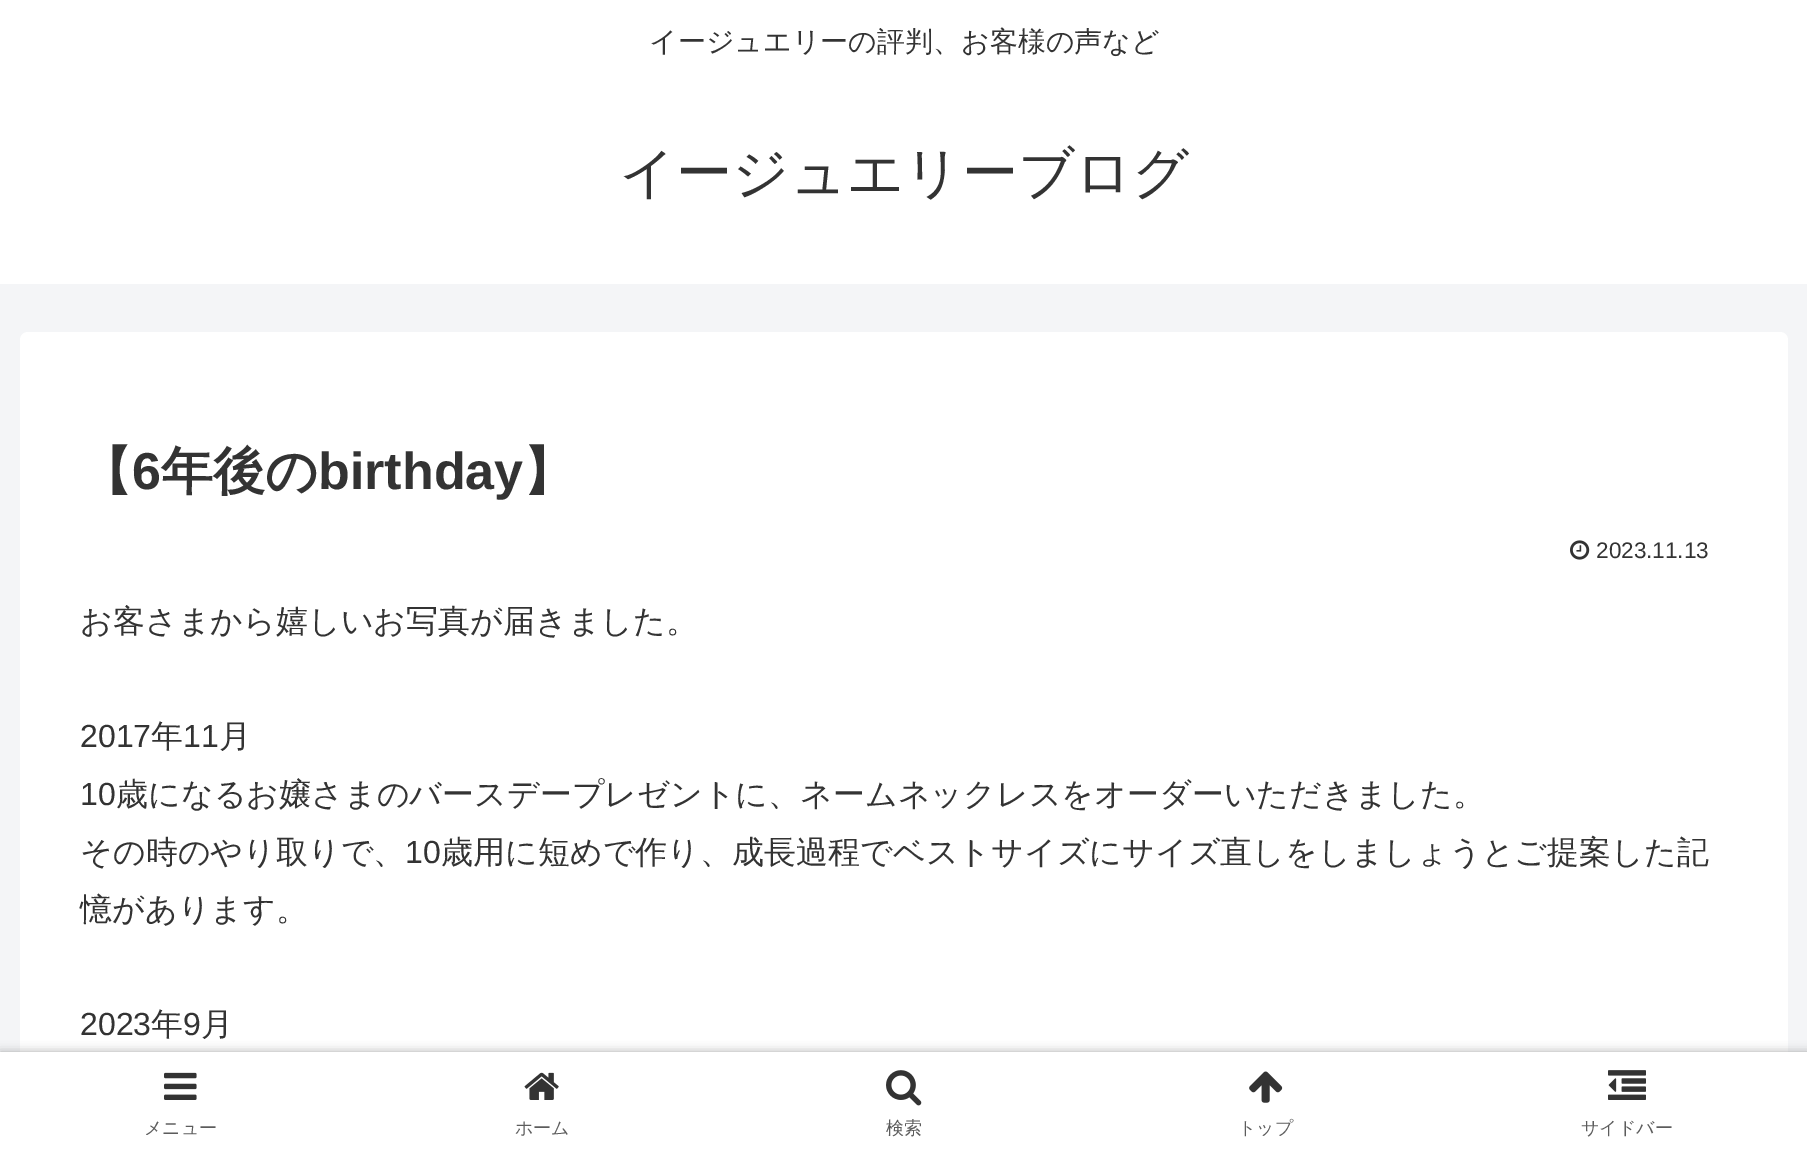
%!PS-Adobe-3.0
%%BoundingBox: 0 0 1807 1151
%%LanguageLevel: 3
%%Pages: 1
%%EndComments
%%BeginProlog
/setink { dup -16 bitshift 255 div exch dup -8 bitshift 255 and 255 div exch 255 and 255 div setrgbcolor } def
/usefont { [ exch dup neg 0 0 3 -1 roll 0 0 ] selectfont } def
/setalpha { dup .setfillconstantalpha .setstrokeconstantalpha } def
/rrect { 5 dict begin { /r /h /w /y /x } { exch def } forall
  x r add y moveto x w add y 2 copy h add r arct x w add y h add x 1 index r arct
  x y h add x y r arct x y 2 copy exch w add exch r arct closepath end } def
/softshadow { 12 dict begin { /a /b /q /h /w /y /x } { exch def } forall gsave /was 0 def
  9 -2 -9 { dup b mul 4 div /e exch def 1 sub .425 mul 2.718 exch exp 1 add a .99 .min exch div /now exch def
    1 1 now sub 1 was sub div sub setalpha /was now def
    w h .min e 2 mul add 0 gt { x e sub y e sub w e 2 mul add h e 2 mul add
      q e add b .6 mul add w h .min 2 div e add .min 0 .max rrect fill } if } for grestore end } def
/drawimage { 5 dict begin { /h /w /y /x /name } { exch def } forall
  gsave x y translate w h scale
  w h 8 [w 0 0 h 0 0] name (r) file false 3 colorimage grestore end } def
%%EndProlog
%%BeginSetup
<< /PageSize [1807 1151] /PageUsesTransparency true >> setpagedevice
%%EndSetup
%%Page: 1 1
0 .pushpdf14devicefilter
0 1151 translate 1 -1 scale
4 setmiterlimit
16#F4F5F7 setink
0 0 1807 1151 rectfill
16#FFFFFF setink
0 0 1807 284 rectfill
/WenQuanYiZenHei-Medium 28 usefont
16#333333 setink
649 51 moveto (イージュエリーの評判、お客様の声など) show
/WenQuanYiZenHei-Medium 56 usefont
619 192 moveto (イージュエリーブログ) show
16#FFFFFF setink
20 332 1768 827 8 rrect fill
/WenQuanYiZenHei-Bold 52 usefont
16#333333 setink
80 489 moveto (【) show
/LiberationSans-Bold 52 usefont
132 489 moveto (6) show
/WenQuanYiZenHei-Bold 52 usefont
161 489 moveto (年後の) show
/LiberationSans-Bold 52 usefont
318 489 moveto (birthday) show
/WenQuanYiZenHei-Bold 52 usefont
523 489 moveto (】) show
(img1.raw) 1570 540 20 20 drawimage
/LiberationSans-Regular 22.5 usefont
1596 558 moveto (2023.11.13) show
/WenQuanYiZenHei-Medium 32 usefont
80 632 moveto (お客さまから嬉しいお写真が届きました。) show
/LiberationSans-Regular 32 usefont
80 747 moveto (2017) show
/WenQuanYiZenHei-Medium 32 usefont
151 747 moveto (年) show
/LiberationSans-Regular 32 usefont
183 747 moveto (11) show
/WenQuanYiZenHei-Medium 32 usefont
219 747 moveto (月) show
/LiberationSans-Regular 32 usefont
80 805 moveto (10) show
/WenQuanYiZenHei-Medium 32 usefont
116 805 moveto (歳になるお嬢さまのバースデープレゼントに、ネームネックレスをオーダーいただきました。) show
80 863 moveto (その時のやり取りで、) show
/LiberationSans-Regular 32 usefont
405 863 moveto (10) show
/WenQuanYiZenHei-Medium 32 usefont
441 863 moveto (歳用に短めで作り、成長過程でベストサイズにサイズ直しをしましょうとご提案した記) show
80 920 moveto (憶があります。) show
/LiberationSans-Regular 32 usefont
80 1035 moveto (2023) show
/WenQuanYiZenHei-Medium 32 usefont
151 1035 moveto (年) show
/LiberationSans-Regular 32 usefont
183 1035 moveto (9) show
/WenQuanYiZenHei-Medium 32 usefont
201 1035 moveto (月) show
16#A9A9A9 setink
0 1052 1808 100 0 5 1 softshadow
16#FFFFFF setink
0 1052 1807 99 rectfill
(img2.raw) 164 1072 33 28 drawimage
/WenQuanYiZenHei-Medium 18 usefont
16#5C5C5C setink
144 1134 moveto (メニュー) show
(img3.raw) 524 1072 35 28 drawimage
515 1134 moveto (ホーム) show
(img4.raw) 886 1070 36 36 drawimage
886 1134 moveto (検索) show
(img5.raw) 1249 1071 34 32 drawimage
1238 1134 moveto (トップ) show
(img6.raw) 1608 1070 38 30 drawimage
1581 1134 moveto (サイドバー) show
.poppdf14devicefilter showpage
%%EOF
